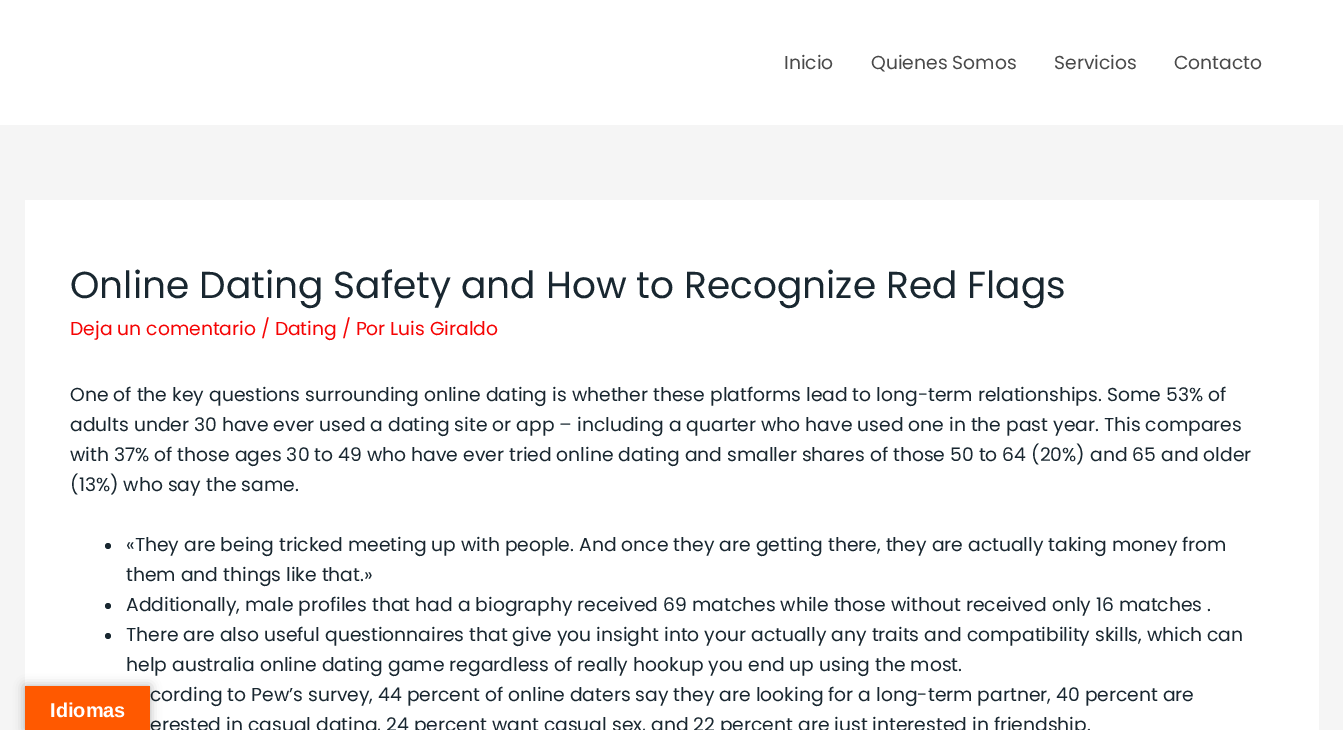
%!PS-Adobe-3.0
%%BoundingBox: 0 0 1343 730
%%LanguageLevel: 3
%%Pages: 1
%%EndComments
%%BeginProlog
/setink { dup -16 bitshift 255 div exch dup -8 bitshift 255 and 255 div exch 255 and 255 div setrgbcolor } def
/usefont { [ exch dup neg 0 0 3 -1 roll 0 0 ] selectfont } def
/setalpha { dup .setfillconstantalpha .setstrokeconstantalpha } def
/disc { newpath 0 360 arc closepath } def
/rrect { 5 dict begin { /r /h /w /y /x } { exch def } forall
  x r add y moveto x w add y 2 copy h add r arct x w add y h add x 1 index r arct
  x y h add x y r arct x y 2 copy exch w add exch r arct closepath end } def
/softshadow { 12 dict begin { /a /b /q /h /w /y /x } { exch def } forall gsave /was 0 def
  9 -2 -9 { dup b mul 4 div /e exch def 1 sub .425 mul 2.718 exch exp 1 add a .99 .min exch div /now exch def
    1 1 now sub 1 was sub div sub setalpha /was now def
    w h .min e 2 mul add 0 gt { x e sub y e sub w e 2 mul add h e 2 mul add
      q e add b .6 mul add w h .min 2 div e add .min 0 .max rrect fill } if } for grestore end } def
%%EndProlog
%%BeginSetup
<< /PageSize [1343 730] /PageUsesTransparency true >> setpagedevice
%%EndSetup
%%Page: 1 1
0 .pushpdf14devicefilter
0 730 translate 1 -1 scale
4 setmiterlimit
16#F5F5F5 setink
0 0 1343 730 rectfill
16#FFFFFF setink
0 0 1343 125 rectfill
/Poppins-Regular 18.75 usefont
16#4A4A4A setink
[
    [(Inicio) 784 69]
    [(Quienes Somos) 871 69]
    [(Servicios) 1054 69]
    [(Contacto) 1174 69]
] { aload pop moveto show } forall
16#FFFFFF setink
25 200 1294 530 rectfill
/Poppins-Regular 37.5 usefont
16#192730 setink
70 298 moveto (Online Dating Safety and How to Recognize Red Flags) show
/Poppins-Regular 18.75 usefont
16#F50404 setink
70 335 moveto (Deja un comentario / Dating / Por Luis Giraldo) show
16#192730 setink
[
    [(One of the key questions surrounding online dating is whether these platforms lead to long-term relationships. Some 53% of) 70 401]
    [(adults under 30 have ever used a dating site or app – including a quarter who have used one in the past year. This compares) 70 431]
    [(with 37% of those ages 30 to 49 who have ever tried online dating and smaller shares of those 50 to 64 \(20%\) and 65 and older) 70 461]
    [(\(13%\) who say the same.) 70 491]
] { aload pop moveto show } forall
108 546 3 disc fill
126 551 moveto («They are being tricked meeting up with people. And once they are getting there, they are actually taking money from) show
126 581 moveto (them and things like that.») show
108 606 3 disc fill
126 611 moveto (Additionally, male profiles that had a biography received 69 matches while those without received only 16 matches .) show
108 636 3 disc fill
[
    [(There are also useful questionnaires that give you insight into your actually any traits and compatibility skills, which can) 126 641]
    [(help australia online dating game regardless of really hookup you end up using the most.) 126 671]
    [(cording to Pew’s survey, 44 percent of online daters say they are looking for a long-term partner, 40 percent are) 150 701]
    [(erested in casual dating, 24 percent want casual sex, and 22 percent are just interested in friendship.) 150 731]
] { aload pop moveto show } forall
16#000000 setink
25 686 125 44 0 5.5 0.3 softshadow
16#FF5900 setink
25 686 125 44 rectfill
/LiberationSans-Bold 20 usefont
16#FFFFFF setink
50 717 moveto (Idiomas) show
.poppdf14devicefilter showpage
%%EOF
